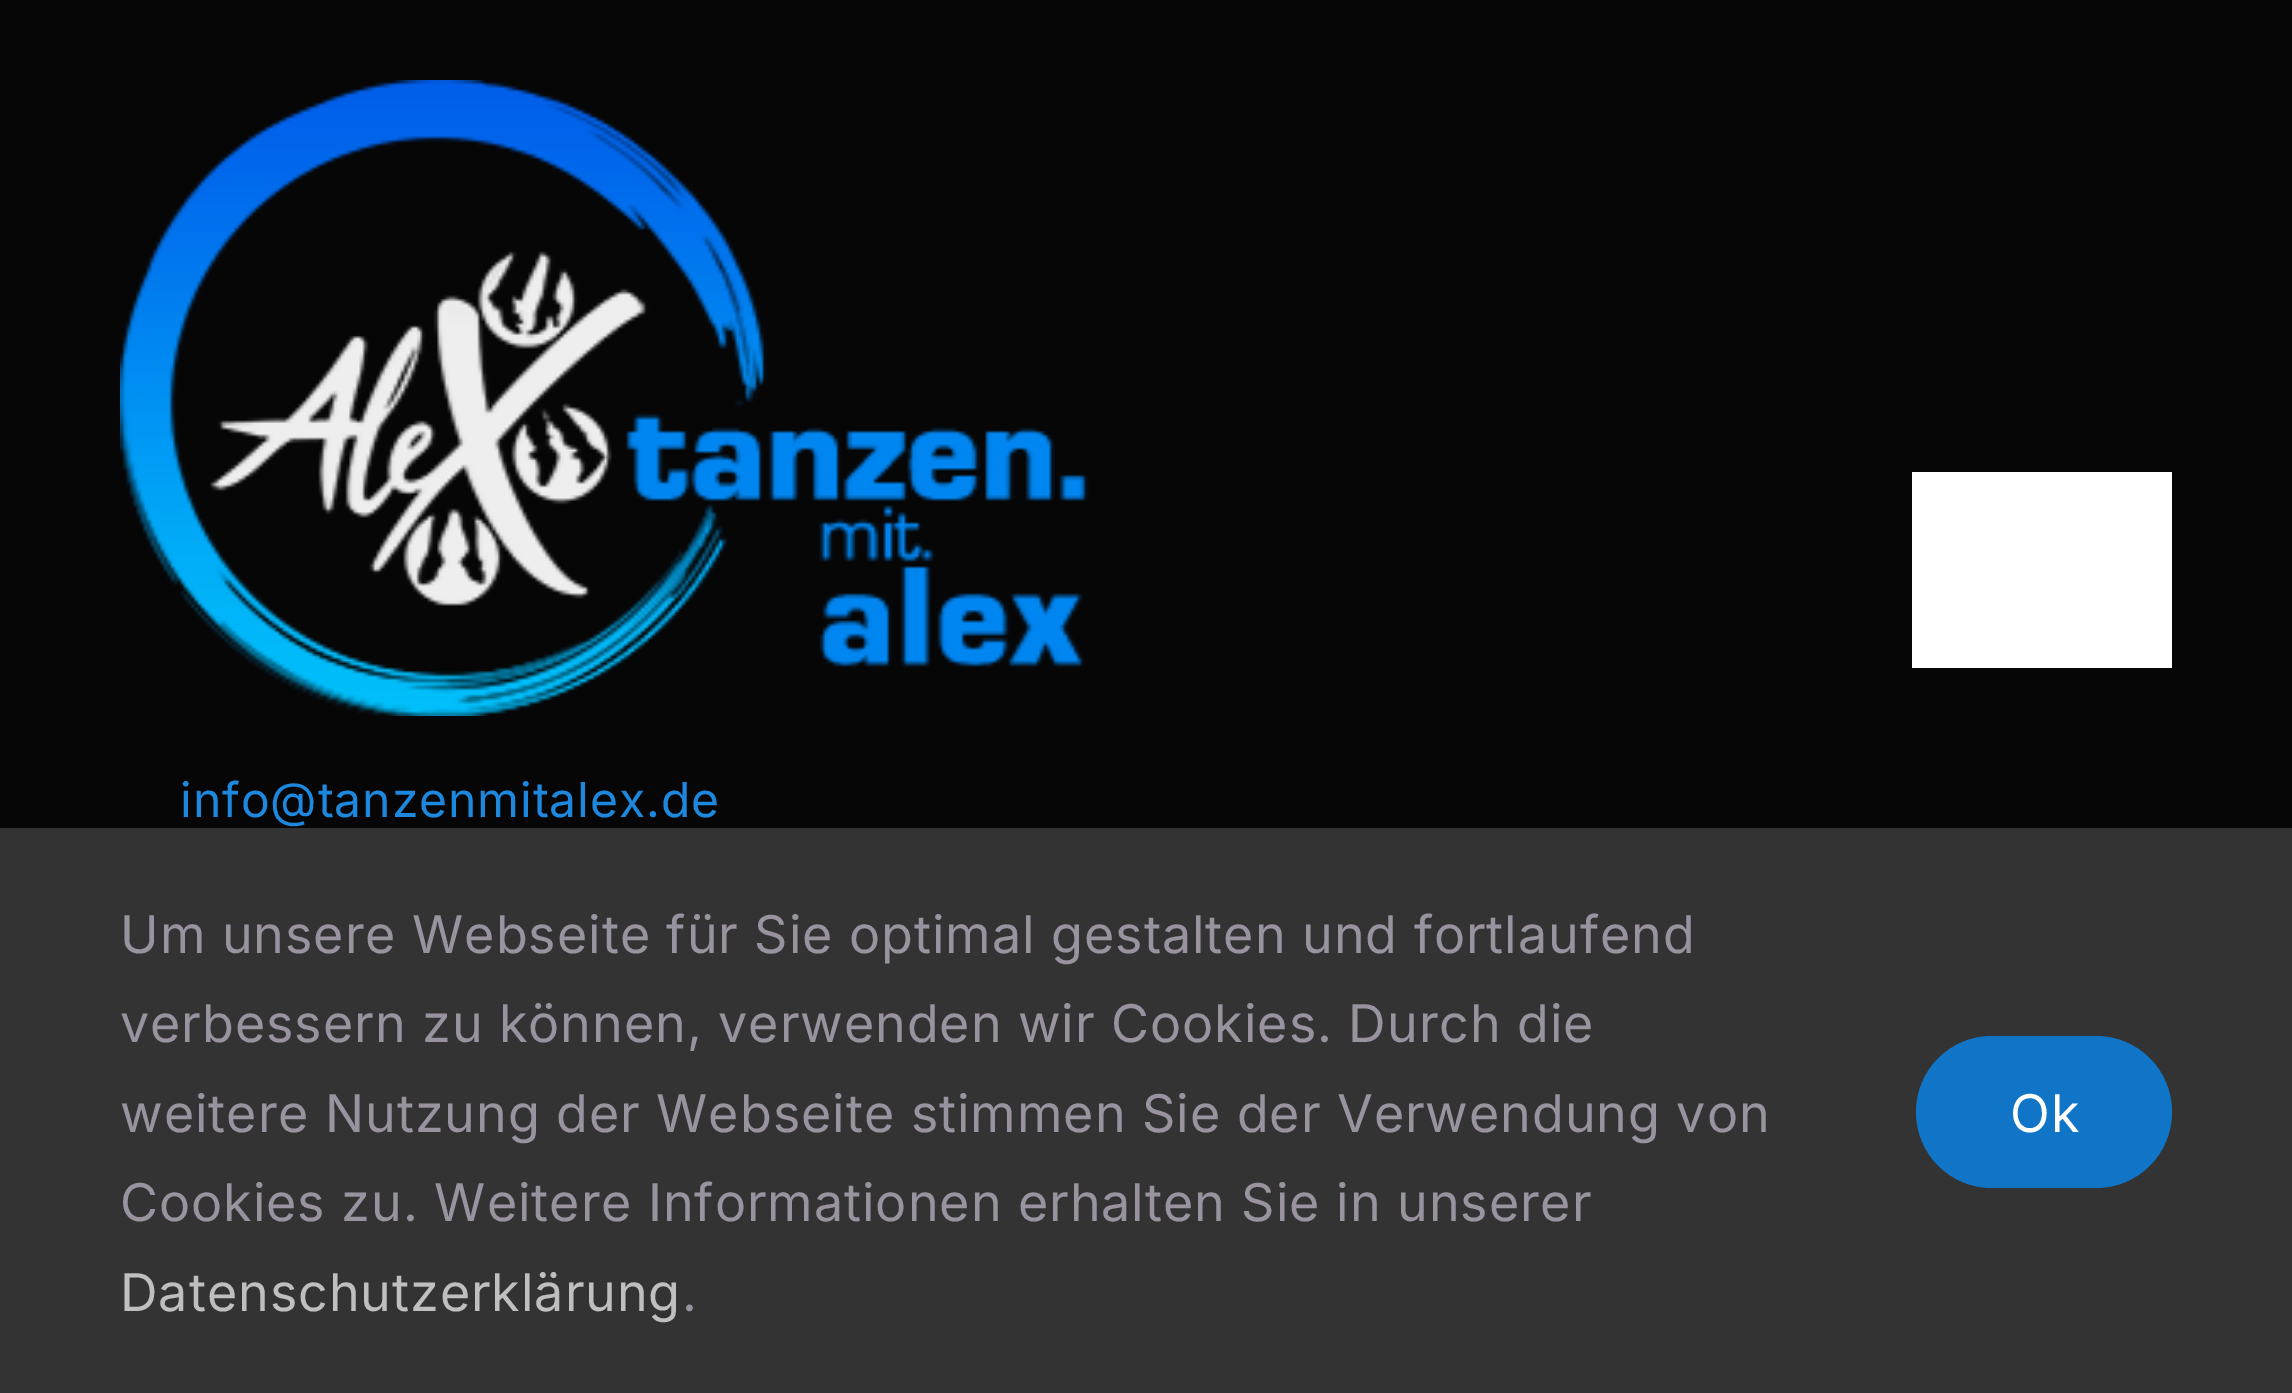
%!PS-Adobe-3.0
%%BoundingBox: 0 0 2292 1393
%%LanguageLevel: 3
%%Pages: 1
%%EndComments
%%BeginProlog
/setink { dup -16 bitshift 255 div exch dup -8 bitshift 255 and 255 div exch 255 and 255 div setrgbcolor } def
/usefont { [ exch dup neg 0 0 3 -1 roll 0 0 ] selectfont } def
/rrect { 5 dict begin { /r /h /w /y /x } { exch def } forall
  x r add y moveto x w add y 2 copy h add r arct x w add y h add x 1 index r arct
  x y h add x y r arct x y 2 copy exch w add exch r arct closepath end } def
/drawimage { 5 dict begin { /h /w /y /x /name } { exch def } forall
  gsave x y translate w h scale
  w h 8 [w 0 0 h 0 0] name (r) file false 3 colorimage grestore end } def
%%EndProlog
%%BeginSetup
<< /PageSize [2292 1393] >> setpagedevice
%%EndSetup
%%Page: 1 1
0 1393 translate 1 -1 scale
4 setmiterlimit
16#060607 setink
0 0 2292 1393 rectfill
16#FFFFFF setink
1912 472 260 196 rectfill
(img1.raw) 120 80 969 636 drawimage
/Inter-Regular 48 usefont
16#1D88DD setink
180 817 moveto 0.95 0 (info@tanzenmitalex.de) ashow
16#333333 setink
0 828 2292 565 rectfill
/Inter-Regular 52 usefont
16#98939F setink
120 953 moveto 0.95 0 (Um unsere Webseite für Sie optimal gestalten und fortlaufend) ashow
120 1042 moveto 0.95 0 (verbessern zu können, verwenden wir Cookies. Durch die) ashow
120 1132 moveto 0.95 0 (weitere Nutzung der Webseite stimmen Sie der Verwendung von) ashow
120 1221 moveto 0.95 0 (Cookies zu. Weitere Informationen erhalten Sie in unserer) ashow
16#BFBFBF setink
120 1311 moveto 0.95 0 (Datenschutzerklärung) ashow
16#98939F setink
682 1311 moveto 0.95 0 (.) ashow
16#1075C6 setink
1916 1036 256 152 76 rrect fill
16#FFFFFF setink
2010 1132 moveto 0.95 0 (Ok) ashow
showpage
%%EOF
